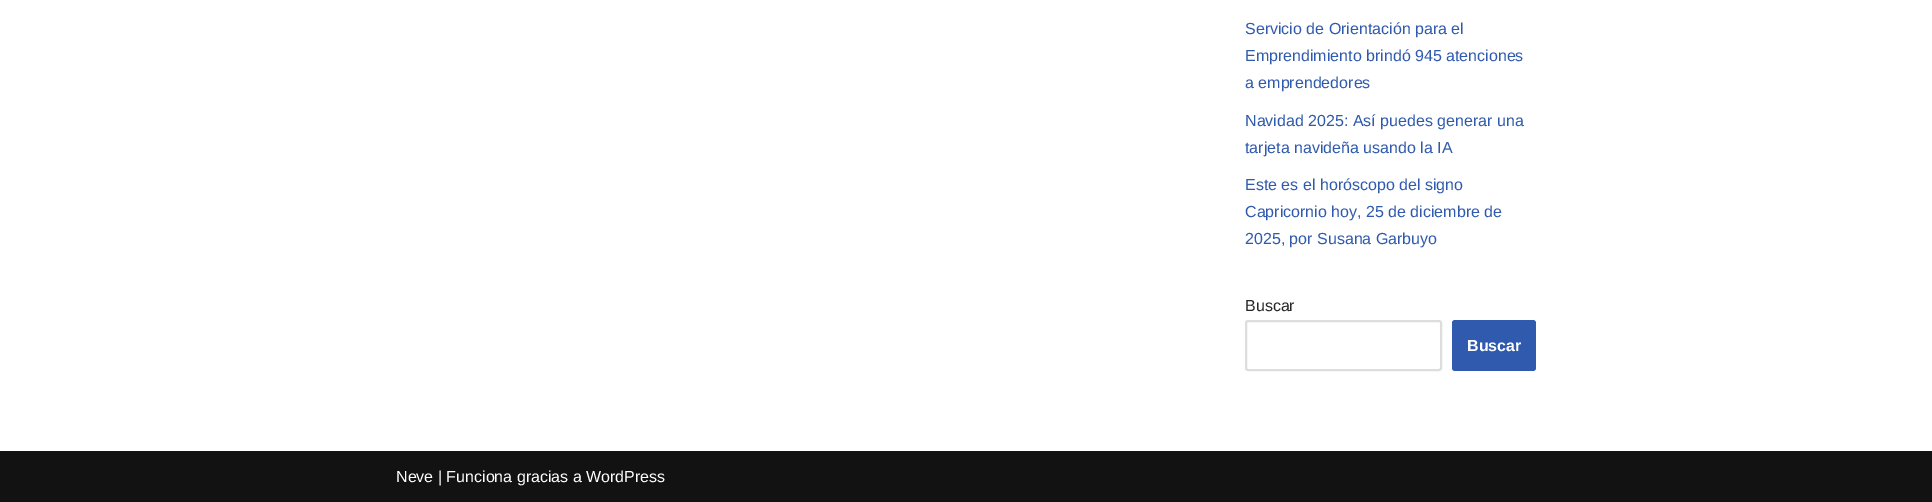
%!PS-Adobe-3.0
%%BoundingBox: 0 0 1932 502
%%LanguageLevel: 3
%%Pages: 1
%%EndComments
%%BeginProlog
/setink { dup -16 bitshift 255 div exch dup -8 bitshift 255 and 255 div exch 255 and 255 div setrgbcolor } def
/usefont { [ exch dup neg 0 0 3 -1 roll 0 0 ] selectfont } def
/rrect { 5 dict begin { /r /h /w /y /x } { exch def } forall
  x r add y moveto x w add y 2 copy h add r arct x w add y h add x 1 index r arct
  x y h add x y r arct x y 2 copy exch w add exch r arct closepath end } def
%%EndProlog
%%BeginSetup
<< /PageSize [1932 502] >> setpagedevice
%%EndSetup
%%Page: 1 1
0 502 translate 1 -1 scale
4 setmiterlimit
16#FFFFFF setink
0 0 1932 502 rectfill
/LiberationSans-Regular 16 usefont
16#2F5AAE setink
[
    [(Servicio de Orientación para el) 1245 34]
    [(Emprendimiento brindó 945 atenciones) 1245 61]
    [(a emprendedores) 1245 88]
    [(Navidad 2025: Así puedes generar una) 1245 126]
    [(tarjeta navideña usando la IA) 1245 153]
    [(Este es el horóscopo del signo) 1245 190]
    [(Capricornio hoy, 25 de diciembre de) 1245 217]
    [(2025, por Susana Garbuyo) 1245 244]
] { aload pop moveto show } forall
16#272626 setink
1245 311 moveto (Buscar) show
16#DDDDDD setink
2 setlinewidth
1246 321 195 49 2 rrect stroke
16#2F5AAE setink
1452 320 84 51 3 rrect fill
/LiberationSans-Bold 16 usefont
16#FFFFFF setink
1467 351 moveto (Buscar) show
16#121212 setink
0 451 1932 51 rectfill
/LiberationSans-Regular 16 usefont
16#FFFFFF setink
396 482 moveto (Neve | Funciona gracias a WordPress) show
showpage
%%EOF
